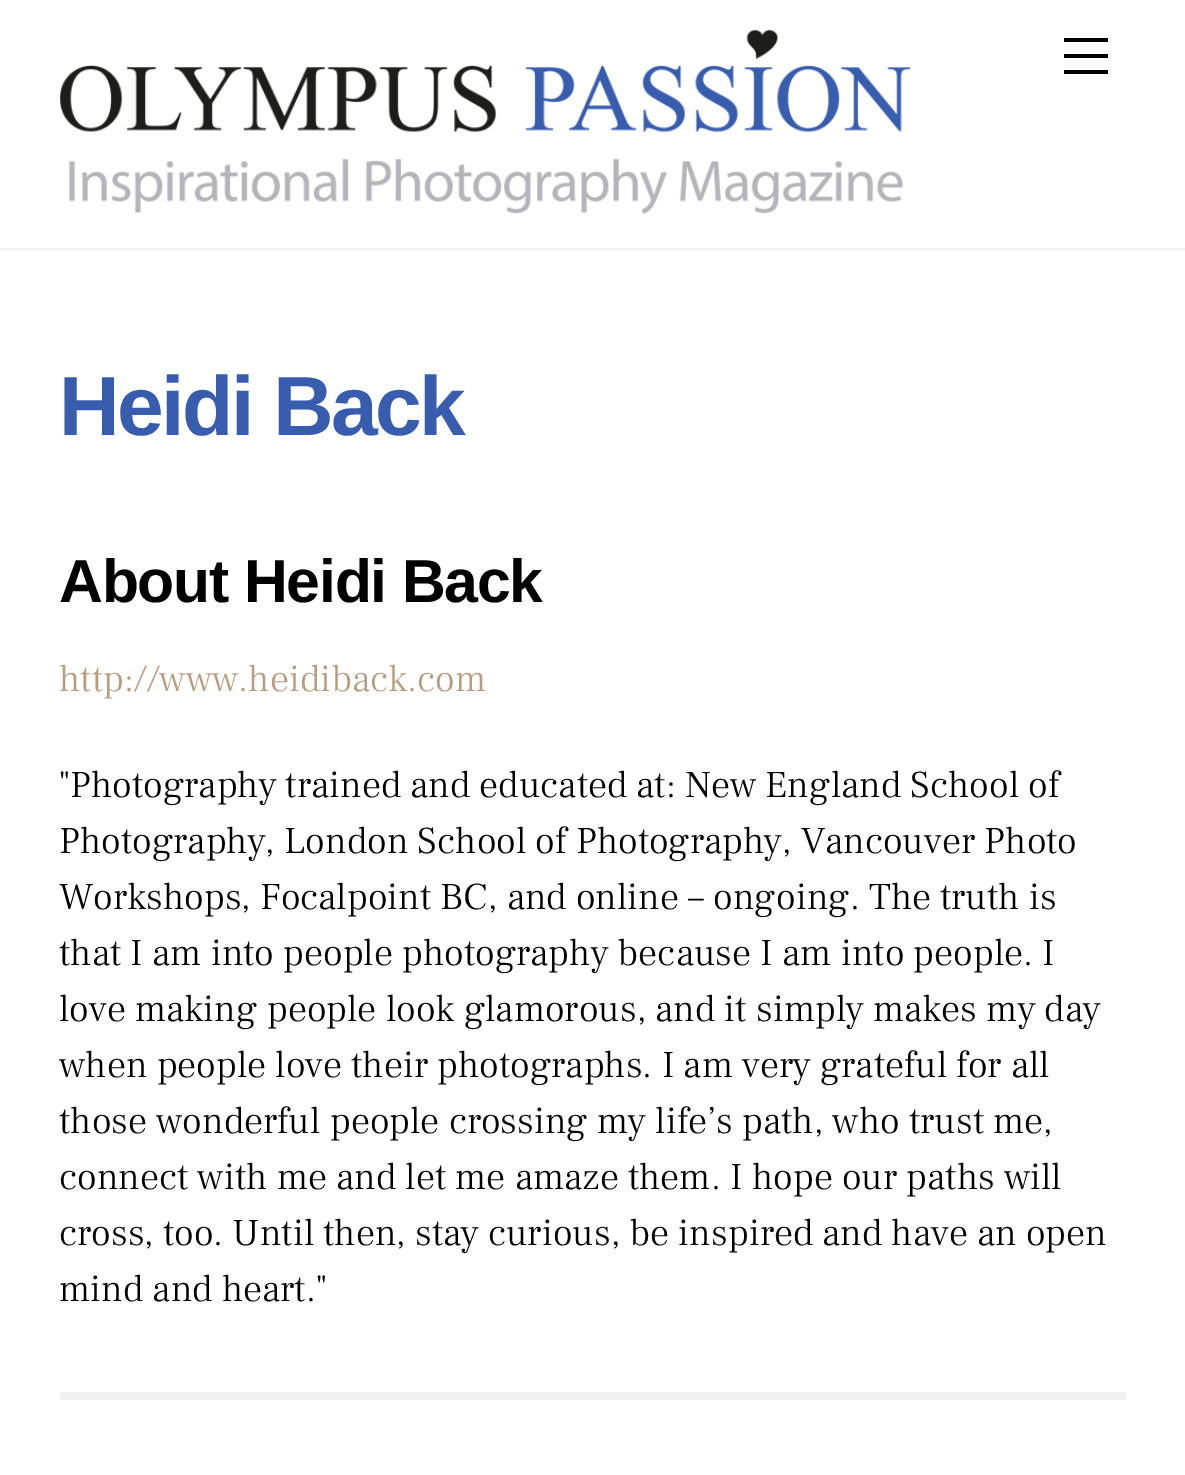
%!PS-Adobe-3.0
%%BoundingBox: 0 0 1185 1475
%%LanguageLevel: 3
%%Pages: 1
%%EndComments
%%BeginProlog
/setink { dup -16 bitshift 255 div exch dup -8 bitshift 255 and 255 div exch 255 and 255 div setrgbcolor } def
/usefont { [ exch dup neg 0 0 3 -1 roll 0 0 ] selectfont } def
/drawimage { 5 dict begin { /h /w /y /x /name } { exch def } forall
  gsave x y translate w h scale
  w h 8 [w 0 0 h 0 0] name (r) file false 3 colorimage grestore end } def
%%EndProlog
%%BeginSetup
<< /PageSize [1185 1475] >> setpagedevice
%%EndSetup
%%Page: 1 1
0 1475 translate 1 -1 scale
4 setmiterlimit
16#FFFFFF setink
0 0 1185 1475 rectfill
16#F2F2F2 setink
0 248 1185 2 rectfill
(img1.raw) 60 30 850 184 drawimage
[
    [1064 70 44 4 16#000000]
    [1064 38 44 4 16#000000]
    [1064 54 44 4 16#000000]
] { aload pop setink rectfill } forall
/Arimo-Bold 84 usefont
16#385CAE setink
59 435 moveto -2.5 0 (Heidi Back) ashow
/Arimo-Bold 60.75 usefont
16#000000 setink
59 602 moveto -1.25 0 (About Heidi Back) ashow
/FrankRuhlLibre-Light 38 usefont
16#B79C80 setink
59 691 moveto (http://www.heidiback.com) show
16#000000 setink
[
    [("Photography trained and educated at: New England School of) 59 797]
    [(Photography, London School of Photography, Vancouver Photo) 59 853]
    [(Workshops, Focalpoint BC, and online – ongoing. The truth is) 59 909]
    [(that I am into people photography because I am into people. I) 59 965]
    [(love making people look glamorous, and it simply makes my day) 59 1021]
    [(when people love their photographs. I am very grateful for all) 59 1077]
    [(those wonderful people crossing my life’s path, who trust me,) 59 1133]
    [(connect with me and let me amaze them. I hope our paths will) 59 1189]
    [(cross, too. Until then, stay curious, be inspired and have an open) 59 1245]
    [(mind and heart.") 59 1301]
] { aload pop moveto show } forall
16#F1F1F1 setink
60 1392 1066 8 rectfill
showpage
%%EOF
